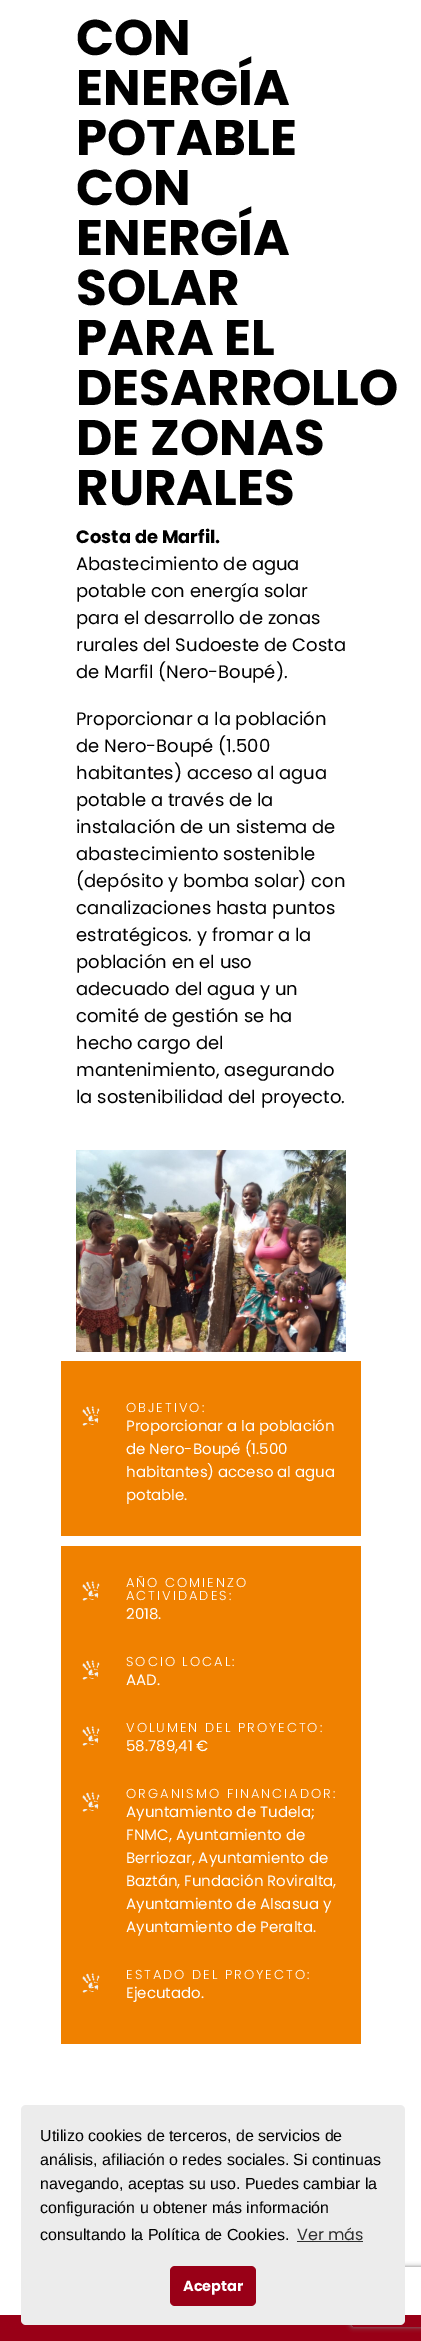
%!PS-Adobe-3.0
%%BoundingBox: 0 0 421 2341
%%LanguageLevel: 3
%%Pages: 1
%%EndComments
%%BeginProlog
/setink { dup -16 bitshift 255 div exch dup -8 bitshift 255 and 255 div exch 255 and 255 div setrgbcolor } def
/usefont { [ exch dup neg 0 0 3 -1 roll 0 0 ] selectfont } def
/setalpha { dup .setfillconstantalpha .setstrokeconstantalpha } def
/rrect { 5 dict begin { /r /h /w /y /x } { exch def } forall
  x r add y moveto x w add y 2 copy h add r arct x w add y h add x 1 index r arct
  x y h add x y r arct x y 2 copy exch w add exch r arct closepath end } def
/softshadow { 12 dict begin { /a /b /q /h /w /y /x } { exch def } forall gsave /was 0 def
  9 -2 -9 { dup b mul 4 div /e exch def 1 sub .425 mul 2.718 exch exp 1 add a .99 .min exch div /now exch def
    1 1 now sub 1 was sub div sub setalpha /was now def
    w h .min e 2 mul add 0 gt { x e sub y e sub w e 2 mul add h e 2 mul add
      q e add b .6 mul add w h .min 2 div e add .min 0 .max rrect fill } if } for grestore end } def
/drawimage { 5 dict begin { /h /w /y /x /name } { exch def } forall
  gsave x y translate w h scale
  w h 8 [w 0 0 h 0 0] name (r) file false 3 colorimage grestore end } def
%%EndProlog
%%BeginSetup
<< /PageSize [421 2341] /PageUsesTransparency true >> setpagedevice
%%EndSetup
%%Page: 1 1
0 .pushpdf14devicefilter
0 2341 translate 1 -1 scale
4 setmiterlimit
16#FFFFFF setink
0 0 421 2341 rectfill
/Poppins-Bold 50 usefont
16#000000 setink
[
    [(CON) 76 55]
    [(ENERGÍA) 76 105]
    [(POTABLE) 76 155]
    [(CON) 76 205]
    [(ENERGÍA) 76 255]
    [(SOLAR) 76 305]
    [(PARA EL) 76 355]
    [(DESARROLLO) 76 405]
    [(DE ZONAS) 76 455]
    [(RURALES) 76 505]
] { aload pop moveto show } forall
/Poppins-Bold 18 usefont
76 543 moveto (Costa de Marfil.) show
/Poppins-Regular 18 usefont
[
    [(Abastecimiento de agua) 76 570]
    [(potable con energía solar) 76 597]
    [(para el desarrollo de zonas) 76 624]
    [(rurales del Sudoeste de Costa) 76 651]
    [(de Marfil \(Nero-Boupé\).) 76 678]
    [(Proporcionar a la población) 76 725]
    [(de Nero-Boupé \(1.500) 76 752]
    [(habitantes\) acceso al agua) 76 779]
    [(potable a través de la) 76 806]
    [(instalación de un sistema de) 76 833]
    [(abastecimiento sostenible) 76 860]
    [(\(depósito y bomba solar\) con) 76 887]
    [(canalizaciones hasta puntos) 76 914]
    [(estratégicos. y fromar a la) 76 941]
    [(población en el uso) 76 968]
    [(adecuado del agua y un) 76 995]
    [(comité de gestión se ha) 76 1022]
    [(hecho cargo del) 76 1049]
    [(mantenimiento, asegurando) 76 1076]
    [(la sostenibilidad del proyecto.) 76 1103]
] { aload pop moveto show } forall
(img1.raw) 76 1150 270 202 drawimage
16#F08100 setink
61 1361 300 175 rectfill
(img2.raw) 82 1406 18 20 drawimage
/Poppins-Light 13 usefont
16#FFFFFF setink
126 1412 moveto 2 0 (OBJETIVO:) ashow
/Poppins-Regular 15 usefont
[
    [(Proporcionar a la población) 126 1431]
    [(de Nero-Boupé \(1.500) 126 1454]
    [(habitantes\) acceso al agua) 126 1477]
    [(potable.) 126 1500]
] { aload pop moveto show } forall
16#F08100 setink
61 1546 300 498 rectfill
(img2.raw) 82 1581 18 20 drawimage
/Poppins-Light 13 usefont
16#FFFFFF setink
126 1587 moveto 2 0 (AÑO COMIENZO) ashow
126 1600 moveto 2 0 (ACTIVIDADES:) ashow
/Poppins-Regular 15 usefont
126 1619 moveto (2018.) show
(img2.raw) 82 1660 18 20 drawimage
/Poppins-Light 13 usefont
126 1666 moveto 2 0 (SOCIO LOCAL:) ashow
/Poppins-Regular 15 usefont
126 1685 moveto (AAD.) show
(img2.raw) 82 1726 18 20 drawimage
/Poppins-Light 13 usefont
126 1732 moveto 2 0 (VOLUMEN DEL PROYECTO:) ashow
/Poppins-Regular 15 usefont
126 1751 moveto (58.789,41 €) show
(img2.raw) 82 1792 18 20 drawimage
/Poppins-Light 13 usefont
126 1798 moveto 2 0 (ORGANISMO FINANCIADOR:) ashow
/Poppins-Regular 15 usefont
[
    [(Ayuntamiento de Tudela;) 126 1817]
    [(FNMC, Ayuntamiento de) 126 1840]
    [(Berriozar, Ayuntamiento de) 126 1863]
    [(Baztán, Fundación Roviralta,) 126 1886]
    [(Ayuntamiento de Alsasua y) 126 1909]
    [(Ayuntamiento de Peralta.) 126 1932]
] { aload pop moveto show } forall
(img2.raw) 82 1973 18 20 drawimage
/Poppins-Light 13 usefont
126 1979 moveto 2 0 (ESTADO DEL PROYECTO:) ashow
/Poppins-Regular 15 usefont
126 1998 moveto (Ejecutado.) show
16#990017 setink
0 2315 421 26 rectfill
gsave
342 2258 moveto 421 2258 lineto 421 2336 lineto 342 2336 lineto closepath 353 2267 moveto 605 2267 lineto 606 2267 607 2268 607 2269 curveto 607 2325 lineto 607 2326 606 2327 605 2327 curveto 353 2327 lineto 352 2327 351 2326 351 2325 curveto 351 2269 lineto 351 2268 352 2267 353 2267 curveto closepath eoclip newpath
16#808080 setink
351 2267 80 60 2 2.5 1 softshadow
grestore
16#ECECEC setink
21 2105 384 220 5 rrect fill
/LiberationSans-Regular 16 usefont
16#000000 setink
[
    [(Utilizo cookies de terceros, de servicios de) 40 2141]
    [(análisis, afiliación o redes sociales. Si continuas) 40 2165]
    [(navegando, aceptas su uso. Puedes cambiar la) 40 2189]
    [(configuración u obtener más información) 40 2213]
    [(consultando la Política de Cookies.) 40 2240]
] { aload pop moveto show } forall
/Poppins-Regular 16 usefont
16#2F2F2F setink
297 2240 moveto (Ver más) show
297 2241 66 1 rectfill
16#990017 setink
170 2266 86 40 5 rrect fill
/Poppins-Bold 14.5 usefont
16#FFFFFF setink
183 2291 moveto (Aceptar) show
.poppdf14devicefilter showpage
%%EOF
